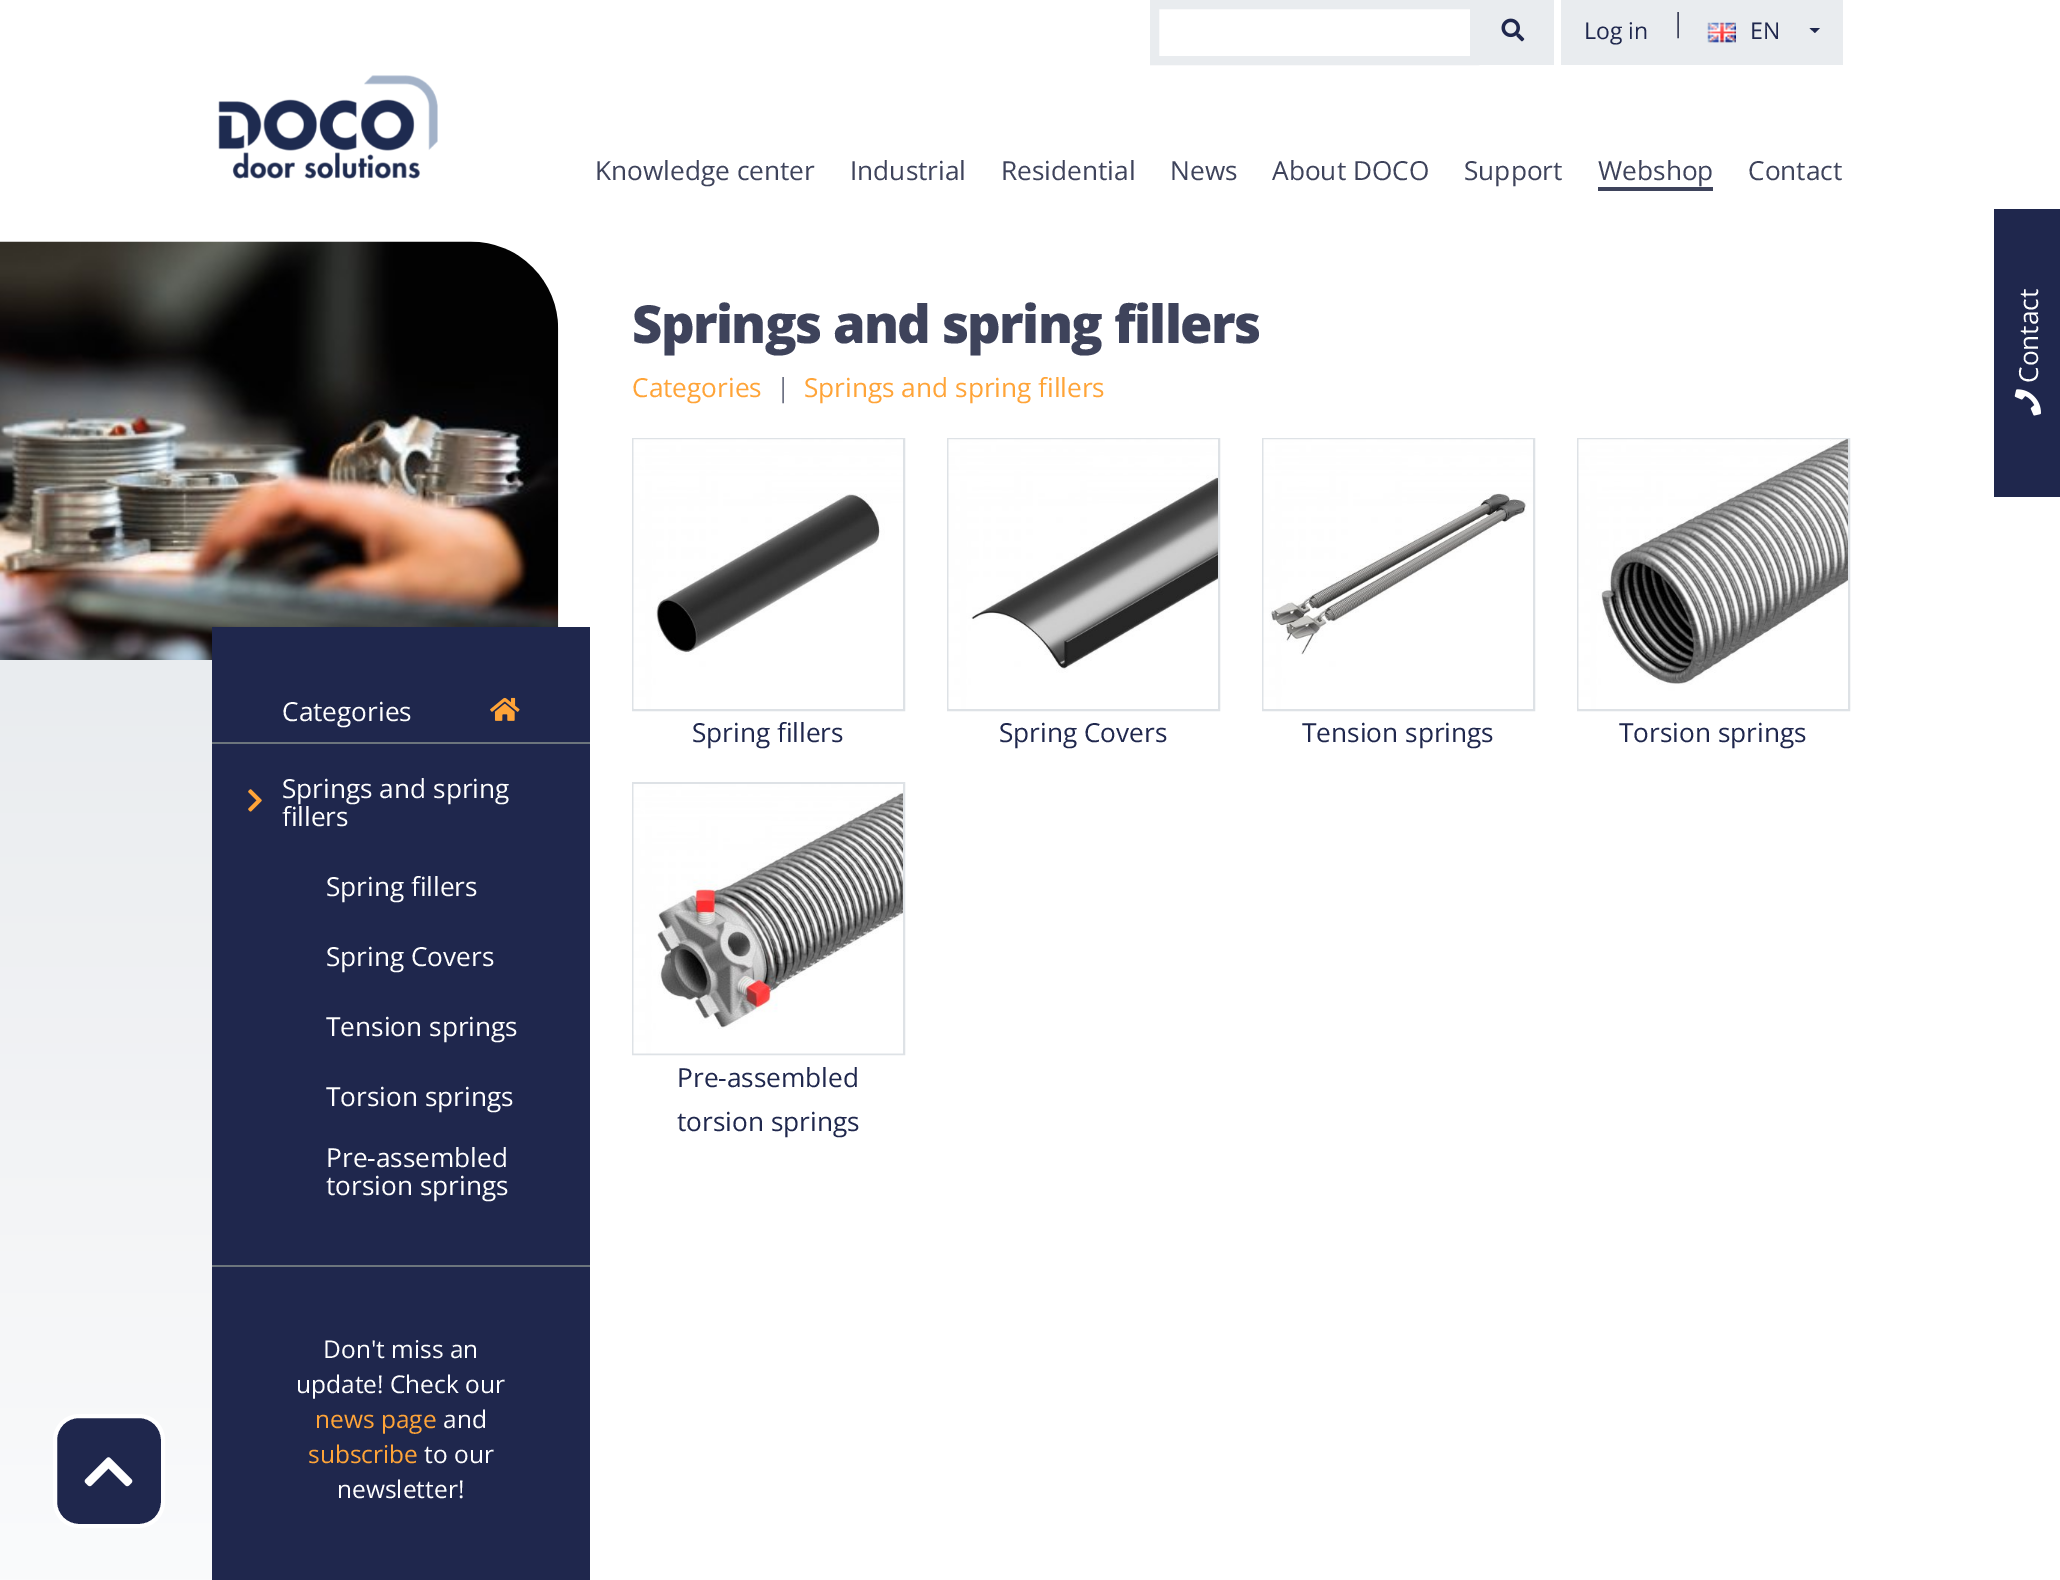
%!PS-Adobe-3.0
%%BoundingBox: 0 0 2060 1580
%%LanguageLevel: 3
%%Pages: 1
%%EndComments
%%BeginProlog
/setink { dup -16 bitshift 255 div exch dup -8 bitshift 255 and 255 div exch 255 and 255 div setrgbcolor } def
/usefont { [ exch dup neg 0 0 3 -1 roll 0 0 ] selectfont } def
/rrect { 5 dict begin { /r /h /w /y /x } { exch def } forall
  x r add y moveto x w add y 2 copy h add r arct x w add y h add x 1 index r arct
  x y h add x y r arct x y 2 copy exch w add exch r arct closepath end } def
/drawimage { 5 dict begin { /h /w /y /x /name } { exch def } forall
  gsave x y translate w h scale
  w h 8 [w 0 0 h 0 0] name (r) file false 3 colorimage grestore end } def
%%EndProlog
%%BeginSetup
<< /PageSize [2060 1580] >> setpagedevice
%%EndSetup
%%Page: 1 1
0 1580 translate 1 -1 scale
4 setmiterlimit
16#FFFFFF setink
0 0 2060 1580 rectfill
16#E9ECEF setink
1479 0 75 65 rectfill
9 setlinewidth
1154.5 4.5 320 56 rectstroke
(img1.raw) 1501 18 24 24 drawimage
1561 0 282 65 rectfill
/OpenSans-Regular 23 usefont
16#1F274D setink
1584 39 moveto (Log in) show
/OpenSans-Regular 26.25 usefont
16#3E435B setink
1671 32 moveto (|) show
(img2.raw) 1707 22 29 21 drawimage
/OpenSans-Regular 23 usefont
16#1F274D setink
1750 39 moveto (EN) show
1809.5 28 moveto 1820 28 lineto 1815 33 lineto closepath fill
(img3.raw) 218 75 220 104 drawimage
/OpenSans-Regular 26.25 usefont
16#3E435B setink
[
    [(Knowledge center) 595 180]
    [(Industrial) 850 180]
    [(Residential) 1001 180]
    [(News) 1170 180]
    [(About DOCO) 1272 180]
    [(Support) 1464 180]
    [(Webshop) 1598 180]
] { aload pop moveto show } forall
1598 187 115 4 rectfill
1748 180 moveto (Contact) show
gsave 0 660 moveto 212 660 lineto 212 1580 lineto 0 1580 lineto closepath clip newpath
<< /ShadingType 2 /ColorSpace /DeviceRGB /Coords [208 660 208 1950] /Extend [true true] /Function << /FunctionType 3 /Domain [0 1] /Functions [<< /FunctionType 2 /Domain [0 1] /C0 [0.914 0.925 0.937] /C1 [1 1 1] /N 1 >> << /FunctionType 2 /Domain [0 1] /C0 [1 1 1] /C1 [1 1 1] /N 1 >>] /Bounds [0.91] /Encode [0 1 0 1] >> >> shfill grestore
16#1F274D setink
55 1416 108 110 24 rrect gsave fill grestore
16#FFFFFF setink
4 setlinewidth
stroke
(img4.raw) 84 1457 49 30 drawimage
(img5.raw) 0 241 559 419 drawimage
16#1F274D setink
212 627 378 953 rectfill
16#6C757D setink
212 742 378 2 rectfill
16#FFFFFF setink
282 721 moveto (Categories) show
(img6.raw) 490 697 30 24 drawimage
(img7.raw) 248 789 14 23 drawimage
[
    [(Springs and spring) 282 798]
    [(fillers) 282 826]
    [(Spring fillers) 326 896]
    [(Spring Covers) 326 966]
    [(Tension springs) 326 1036]
    [(Torsion springs) 326 1106]
    [(Pre-assembled) 326 1167]
    [(torsion springs) 326 1195]
] { aload pop moveto show } forall
16#6C757D setink
212 1265 378 2 rectfill
/OpenSans-Regular 24.5 usefont
16#FFFFFF setink
323 1358 moveto (Don't miss an) show
296 1393 moveto (update! Check our) show
16#FFA438 setink
315 1428 moveto (news page) show
16#FFFFFF setink
443 1428 moveto (and) show
16#FFA438 setink
308 1463 moveto (subscribe) show
16#FFFFFF setink
424 1463 moveto (to our) show
337 1498 moveto (newsletter!) show
/OpenSans-ExtraBold 52.5 usefont
16#3E435B setink
632 343 moveto -1.6 0 (Springs and spring fillers) ashow
/OpenSans-Regular 26.25 usefont
16#FFA438 setink
632 397 moveto (Categories) show
16#6E7284 setink
776 397 moveto (|) show
16#FFA438 setink
804 397 moveto (Springs and spring fillers) show
16#DEE2E6 setink
2 setlinewidth
633 439 271 271 rectstroke
(img8.raw) 633 439 270 270 drawimage
16#1F274D setink
692 742 moveto (Spring fillers) show
16#DEE2E6 setink
948 439 271 271 rectstroke
(img9.raw) 948 439 270 270 drawimage
16#1F274D setink
999 742 moveto (Spring Covers) show
16#DEE2E6 setink
1263 439 271 271 rectstroke
(img10.raw) 1263 439 270 270 drawimage
16#1F274D setink
1302 742 moveto (Tension springs) show
16#DEE2E6 setink
1578 439 271 271 rectstroke
(img11.raw) 1578 439 270 270 drawimage
16#1F274D setink
1619 742 moveto (Torsion springs) show
16#DEE2E6 setink
633 783 271 271 rectstroke
(img12.raw) 633 784 270 270 drawimage
16#1F274D setink
677 1087 moveto (Pre-assembled) show
677 1131 moveto (torsion springs) show
1994 209 66 288 rectfill
16#FFFFFF setink
gsave 2038 383 translate -90 rotate 0 0 moveto (Contact) show grestore
(img13.raw) 2014 389 27 27 drawimage
showpage
%%EOF
